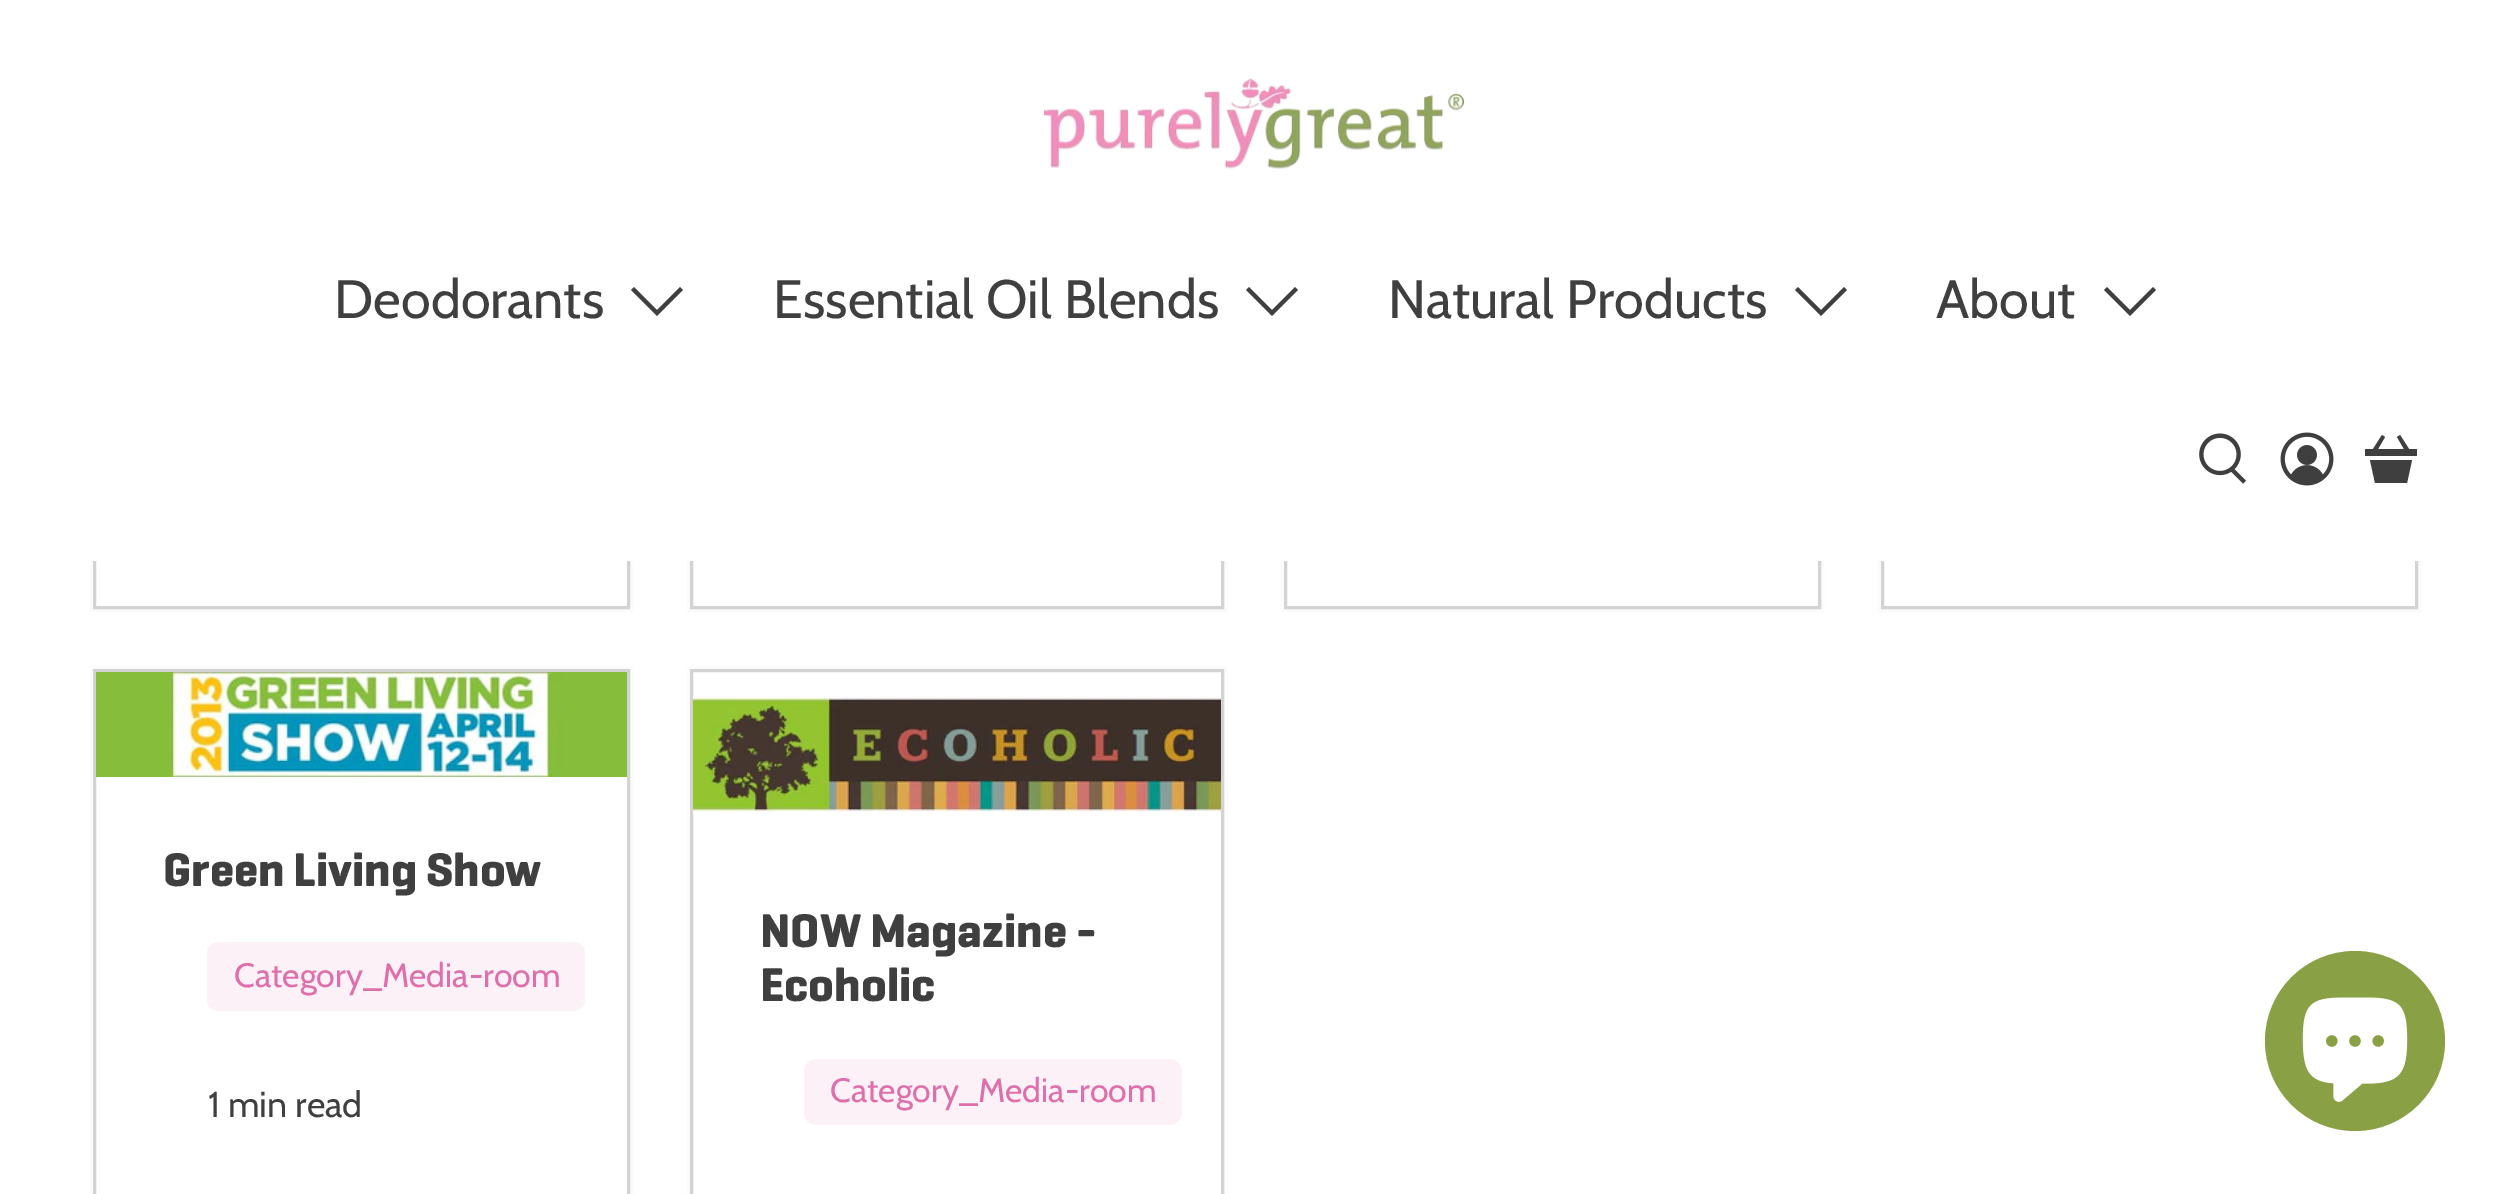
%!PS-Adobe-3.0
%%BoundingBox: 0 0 2509 1194
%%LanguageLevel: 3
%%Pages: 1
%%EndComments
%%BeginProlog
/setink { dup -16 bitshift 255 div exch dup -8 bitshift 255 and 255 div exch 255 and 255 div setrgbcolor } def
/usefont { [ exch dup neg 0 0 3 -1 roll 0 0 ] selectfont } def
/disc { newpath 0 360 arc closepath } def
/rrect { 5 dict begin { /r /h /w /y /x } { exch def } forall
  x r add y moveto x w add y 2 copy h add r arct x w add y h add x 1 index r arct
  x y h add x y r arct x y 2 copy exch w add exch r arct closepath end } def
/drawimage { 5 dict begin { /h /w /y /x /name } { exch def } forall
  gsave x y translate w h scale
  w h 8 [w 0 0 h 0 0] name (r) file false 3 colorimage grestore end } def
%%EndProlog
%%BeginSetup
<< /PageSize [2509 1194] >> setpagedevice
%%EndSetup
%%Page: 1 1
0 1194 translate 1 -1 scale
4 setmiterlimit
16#FFFFFF setink
0 0 2509 1194 rectfill
16#FBFBFB setink
3 setlinewidth
91.5 -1.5 540 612 rectstroke
16#D3D3D3 setink
94.5 -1.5 534 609 rectstroke
16#FBFBFB setink
688.5 -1.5 537 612 rectstroke
16#D3D3D3 setink
691.5 -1.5 531 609 rectstroke
16#FBFBFB setink
1282.5 -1.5 540 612 rectstroke
16#D3D3D3 setink
1285.5 -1.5 534 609 rectstroke
16#FBFBFB setink
1879.5 -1.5 540 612 rectstroke
16#D3D3D3 setink
1882.5 -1.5 534 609 rectstroke
16#FFFFFF setink
90 0 2331 561 rectfill
(img1.raw) 1044 78 420 91 drawimage
/Cabin-Regular 54 usefont
16#3F3F3F setink
334 318 moveto (Deodorants) show
657 316 moveto 631 290 lineto 634 287 lineto 657 310 lineto 680 287 lineto 683 290 lineto closepath fill
773 318 moveto (Essential Oil Blends) show
1272 316 moveto 1246 290 lineto 1249 287 lineto 1272 310 lineto 1295 287 lineto 1298 290 lineto closepath fill
1388 318 moveto (Natural Products) show
1821 316 moveto 1795 290 lineto 1798 287 lineto 1821 310 lineto 1844 287 lineto 1847 290 lineto closepath fill
1936 318 moveto (About) show
2130 316 moveto 2104 290 lineto 2107 287 lineto 2130 310 lineto 2153 287 lineto 2156 290 lineto closepath fill
(img2.raw) 2199 433 47 51 drawimage
(img3.raw) 2280 432 54 54 drawimage
2409 449 moveto 2400 435 lineto 2397 437 lineto 2404 449 lineto 2378 449 lineto 2385 437 lineto 2382 435 lineto 2373 449 lineto 2365 449 lineto 2365 456 lineto 2417 456 lineto 2417 449 lineto closepath 2375 483 moveto 2407 483 lineto 2412 460 lineto 2370 460 lineto closepath fill
16#FBFBFB setink
91.5 667.5 540 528 rectstroke
16#D3D3D3 setink
94.5 670.5 534 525 rectstroke
(img4.raw) 96 672 531 105 drawimage
/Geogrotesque-Bold 48 usefont
16#3F3F3F setink
163 886 moveto (Green Living Show) show
16#FCF1F7 setink
207 942 378 69 12 rrect fill
/Cabin-Regular 33.75 usefont
16#DF6FAA setink
234 987 moveto (Category_Media-room) show
/Cabin-Regular 36 usefont
16#3F3F3F setink
208 1117 moveto (1 min read) show
16#FBFBFB setink
688.5 667.5 537 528 rectstroke
16#D3D3D3 setink
691.5 670.5 531 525 rectstroke
(img5.raw) 693 696 528 117 drawimage
/Geogrotesque-Bold 48 usefont
16#3F3F3F setink
760 947 moveto (NOW Magazine -) show
760 1001 moveto (Ecoholic) show
16#FCF1F7 setink
804 1059 378 66 12 rrect fill
/Cabin-Regular 33.75 usefont
16#DF6FAA setink
830 1102 moveto (Category_Media-room) show
16#8AA045 setink
2355 1041 90 disc fill
(img6.raw) 2302 997 106 105 drawimage
showpage
%%EOF
